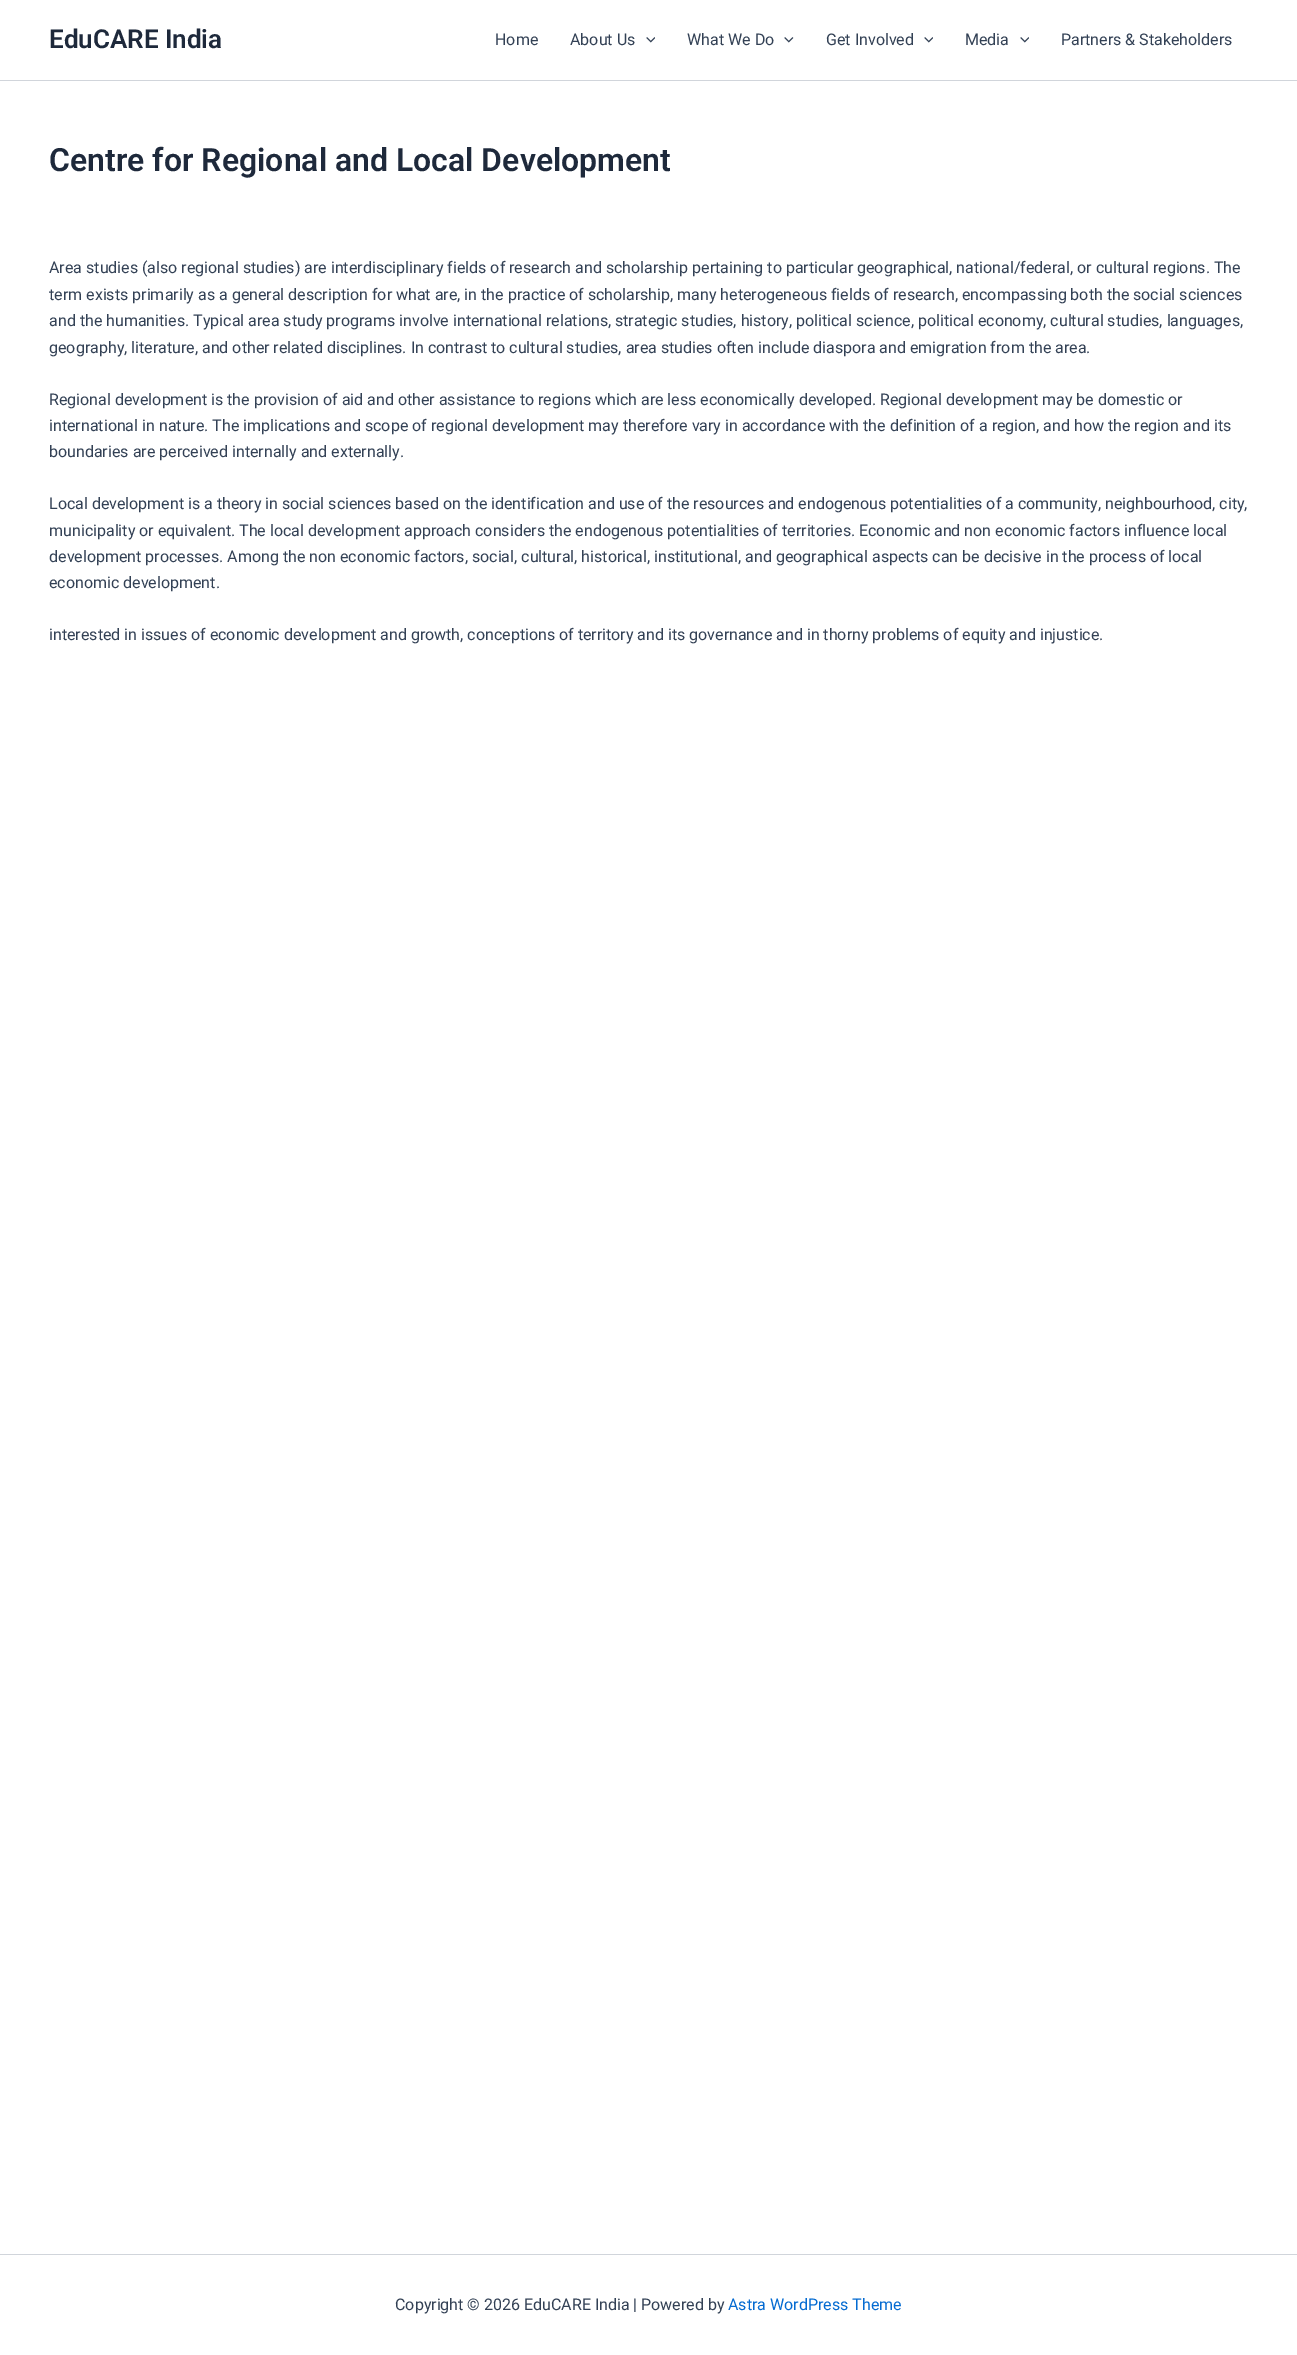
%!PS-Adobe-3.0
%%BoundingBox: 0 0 1297 2355
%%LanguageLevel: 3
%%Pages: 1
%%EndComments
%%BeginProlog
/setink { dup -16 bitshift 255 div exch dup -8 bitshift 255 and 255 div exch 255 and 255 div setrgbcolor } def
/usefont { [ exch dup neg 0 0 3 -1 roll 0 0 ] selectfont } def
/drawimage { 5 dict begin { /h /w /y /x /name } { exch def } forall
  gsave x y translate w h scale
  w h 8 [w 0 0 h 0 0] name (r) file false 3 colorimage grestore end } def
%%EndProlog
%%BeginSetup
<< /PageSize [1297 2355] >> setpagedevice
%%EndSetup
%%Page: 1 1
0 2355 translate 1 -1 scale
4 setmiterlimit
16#FFFFFF setink
0 0 1297 2355 rectfill
16#D1D5DB setink
0 80 1297 1 rectfill
/Roboto-SemiBold 26 usefont
16#1E293B setink
49 48 moveto (EduCARE India) show
/Roboto-Regular 16 usefont
16#334155 setink
495 45 moveto (Home) show
570 45 moveto (About Us) show
(img1.raw) 646 37 9 6 drawimage
687 45 moveto (What We Do) show
(img2.raw) 784 37 10 6 drawimage
826 45 moveto (Get Involved) show
(img1.raw) 924 37 9 6 drawimage
965 45 moveto (Media) show
(img1.raw) 1020 37 9 6 drawimage
1061 45 moveto (Partners & Stakeholders) show
/Roboto-SemiBold 32 usefont
16#1E293B setink
49 171 moveto (Centre for Regional and Local Development) show
/Roboto-Regular 16 usefont
16#334155 setink
[
    [(Area studies \(also regional studies\) are interdisciplinary fields of research and scholarship pertaining to particular geographical, national/federal, or cultural regions. The) 49 273]
    [(term exists primarily as a general description for what are, in the practice of scholarship, many heterogeneous fields of research, encompassing both the social sciences) 49 300]
    [(and the humanities. Typical area study programs involve international relations, strategic studies, history, political science, political economy, cultural studies, languages,) 49 326]
    [(geography, literature, and other related disciplines. In contrast to cultural studies, area studies often include diaspora and emigration from the area.) 49 353]
    [(Regional development is the provision of aid and other assistance to regions which are less economically developed. Regional development may be domestic or) 49 405]
    [(international in nature. The implications and scope of regional development may therefore vary in accordance with the definition of a region, and how the region and its) 49 431]
    [(boundaries are perceived internally and externally.) 49 457]
    [(Local development is a theory in social sciences based on the identification and use of the resources and endogenous potentialities of a community, neighbourhood, city,) 49 509]
    [(municipality or equivalent. The local development approach considers the endogenous potentialities of territories. Economic and non economic factors influence local) 49 536]
    [(development processes. Among the non economic factors, social, cultural, historical, institutional, and geographical aspects can be decisive in the process of local) 49 562]
    [(economic development.) 49 588]
    [(interested in issues of economic development and growth, conceptions of territory and its governance and in thorny problems of equity and injustice.) 49 640]
] { aload pop moveto show } forall
16#D1D5DB setink
0 2254 1297 1 rectfill
16#334155 setink
395 2310 moveto (Copyright © 2026 EduCARE India | Powered by) show
16#046BD2 setink
728 2310 moveto (Astra WordPress Theme) show
showpage
%%EOF
